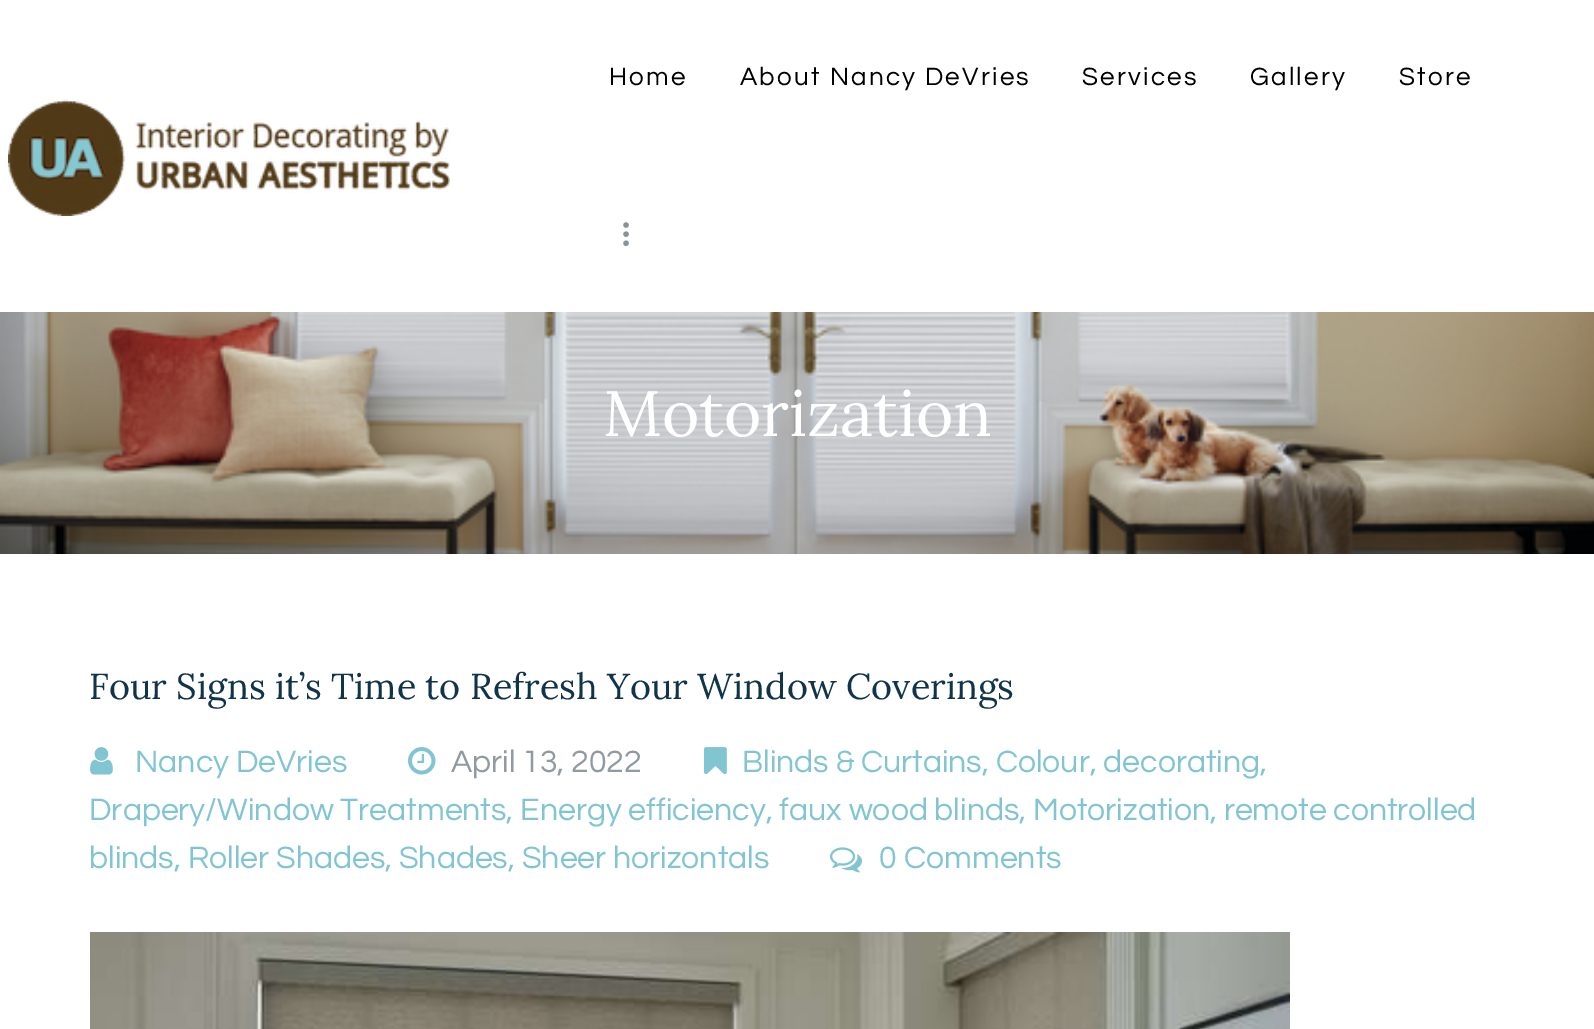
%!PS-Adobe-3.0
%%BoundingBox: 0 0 1594 1029
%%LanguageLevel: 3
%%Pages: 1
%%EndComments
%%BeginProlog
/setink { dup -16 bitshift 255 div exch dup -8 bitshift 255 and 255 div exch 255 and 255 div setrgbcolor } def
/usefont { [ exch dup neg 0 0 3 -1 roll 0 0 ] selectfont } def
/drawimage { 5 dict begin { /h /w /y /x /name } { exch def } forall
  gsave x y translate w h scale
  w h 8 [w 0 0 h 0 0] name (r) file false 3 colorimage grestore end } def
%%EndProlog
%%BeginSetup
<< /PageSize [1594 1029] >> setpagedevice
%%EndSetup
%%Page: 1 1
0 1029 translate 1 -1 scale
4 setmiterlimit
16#FFFFFF setink
0 0 1594 1029 rectfill
(img1.raw) 0 312 1594 242 drawimage
/Questrial-Regular 26 usefont
16#000000 setink
609 85 moveto 2.25 0 (Home) ashow
740 85 moveto 2.25 0 (About Nancy DeVries) ashow
1082 85 moveto 2.25 0 (Services) ashow
1250 85 moveto 2.25 0 (Gallery) ashow
1399 85 moveto 2.25 0 (Store) ashow
(img2.raw) 623 222 6 25 drawimage
(img3.raw) 8 99 442 117 drawimage
/Lora-Regular 64 usefont
16#FFFFFF setink
603 436 moveto (Motorization) show
/Lora-Regular 36 usefont
16#103449 setink
89 699 moveto (Four Signs it’s Time to Refresh Your Window Coverings) show
(img4.raw) 90 747 23 28 drawimage
/Questrial-Regular 32 usefont
16#81C5D3 setink
135 772 moveto (Nancy DeVries) show
(img5.raw) 408 747 28 28 drawimage
16#909AA1 setink
451 772 moveto (April 13, 2022) show
(img6.raw) 704 747 23 28 drawimage
16#81C5D3 setink
[
    [(Blinds & Curtains, Colour, decorating,) 742 772]
    [(Drapery/Window Treatments, Energy efficiency, faux wood blinds, Motorization, remote controlled) 89 820]
    [(blinds, Roller Shades, Shades, Sheer horizontals) 89 868]
] { aload pop moveto show } forall
(img7.raw) 830 847 32 26 drawimage
879 868 moveto (0) show
904 868 moveto (Comments) show
(img8.raw) 90 932 1200 97 drawimage
showpage
%%EOF
